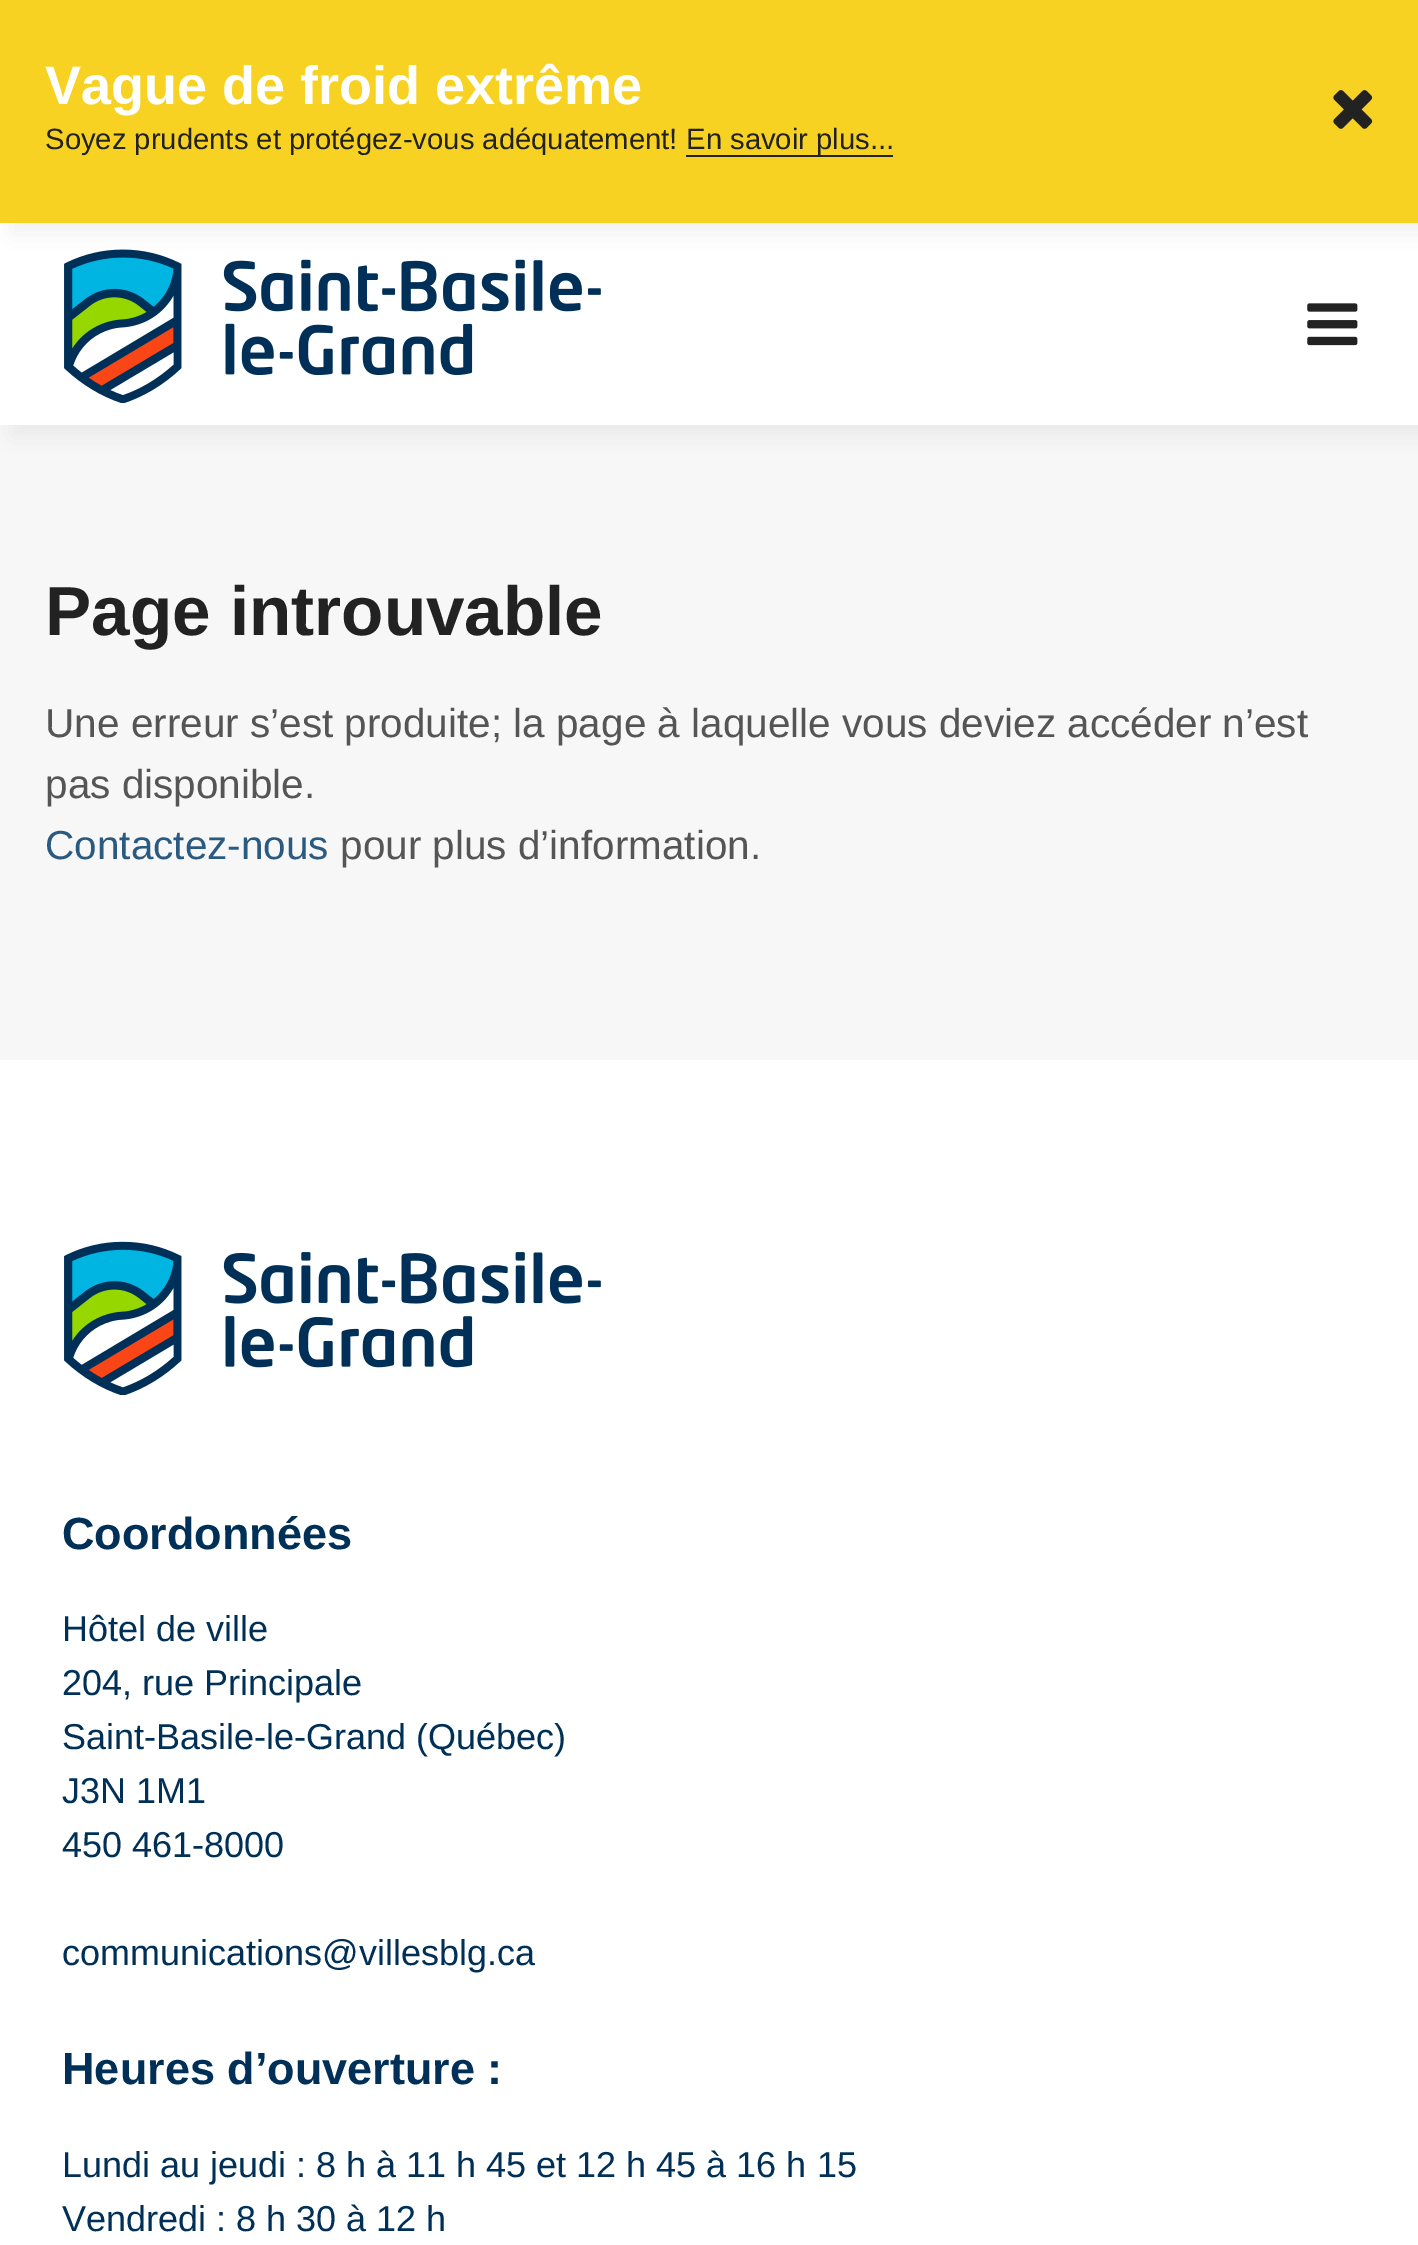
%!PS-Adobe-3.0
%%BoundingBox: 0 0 1418 2245
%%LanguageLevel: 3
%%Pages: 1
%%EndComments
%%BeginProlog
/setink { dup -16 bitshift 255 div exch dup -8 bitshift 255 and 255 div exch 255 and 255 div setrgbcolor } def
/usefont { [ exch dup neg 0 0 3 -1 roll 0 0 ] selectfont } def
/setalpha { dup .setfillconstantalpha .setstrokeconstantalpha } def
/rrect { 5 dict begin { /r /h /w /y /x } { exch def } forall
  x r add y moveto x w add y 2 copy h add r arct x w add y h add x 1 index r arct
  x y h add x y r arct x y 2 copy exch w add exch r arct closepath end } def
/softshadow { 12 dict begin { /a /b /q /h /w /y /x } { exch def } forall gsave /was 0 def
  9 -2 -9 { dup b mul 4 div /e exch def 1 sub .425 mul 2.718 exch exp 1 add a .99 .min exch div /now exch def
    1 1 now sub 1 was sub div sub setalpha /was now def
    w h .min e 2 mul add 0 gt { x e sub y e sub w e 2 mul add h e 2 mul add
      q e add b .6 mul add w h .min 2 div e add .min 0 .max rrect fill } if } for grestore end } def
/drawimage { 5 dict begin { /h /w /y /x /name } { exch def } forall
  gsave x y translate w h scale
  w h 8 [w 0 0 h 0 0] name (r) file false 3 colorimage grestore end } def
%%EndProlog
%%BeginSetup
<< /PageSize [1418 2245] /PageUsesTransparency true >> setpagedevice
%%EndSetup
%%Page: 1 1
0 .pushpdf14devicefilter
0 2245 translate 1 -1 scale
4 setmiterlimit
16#F7F7F7 setink
0 0 1418 2245 rectfill
16#000000 setink
11 234 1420 203 0 11 0.06 softshadow
16#FFFFFF setink
0 223 1418 202 rectfill
(img2.raw) 64 249 537 154 drawimage
16#000000 setink
11 11 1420 223 0 11 0.06 softshadow
16#F7D223 setink
0 0 1418 223 rectfill
/LiberationSans-Bold 54 usefont
16#FFFFFF setink
45 104 moveto (Vague de froid extrême) show
/LiberationSans-Regular 29.25 usefont
16#222222 setink
45 149 moveto (Soyez prudents et protégez-vous adéquatement!) show
686 155 207 2 rectfill
686 149 moveto (En savoir plus...) show
(img1.raw) 1333 90 40 39 drawimage
(img3.raw) 1307 303 51 43 drawimage
/LiberationSans-Bold 69.25 usefont
45 635 moveto (Page introuvable) show
/LiberationSans-Regular 40.5 usefont
16#555555 setink
45 737 moveto (Une erreur s’est produite; la page à laquelle vous deviez accéder n’est) show
45 798 moveto (pas disponible.) show
16#2B5A81 setink
45 859 moveto (Contactez-nous) show
16#555555 setink
340 859 moveto (pour plus d’information.) show
16#FFFFFF setink
0 1060 1418 1185 rectfill
(img4.raw) 64 1241 537 154 drawimage
/LiberationSans-Bold 45 usefont
16#003057 setink
62 1549 moveto (Coordonnées) show
/LiberationSans-Regular 36 usefont
[
    [(Hôtel de ville) 62 1641]
    [(204, rue Principale) 62 1695]
    [(Saint-Basile-le-Grand \(Québec\)) 62 1749]
    [(J3N 1M1) 62 1803]
    [(450 461-8000) 62 1857]
    [(communications@villesblg.ca) 62 1965]
] { aload pop moveto show } forall
/LiberationSans-Bold 45 usefont
62 2084 moveto (Heures d’ouverture :) show
/LiberationSans-Regular 36 usefont
62 2177 moveto (Lundi au jeudi : 8 h à 11 h 45 et 12 h 45 à 16 h 15) show
62 2231 moveto (Vendredi : 8 h 30 à 12 h) show
.poppdf14devicefilter showpage
%%EOF
